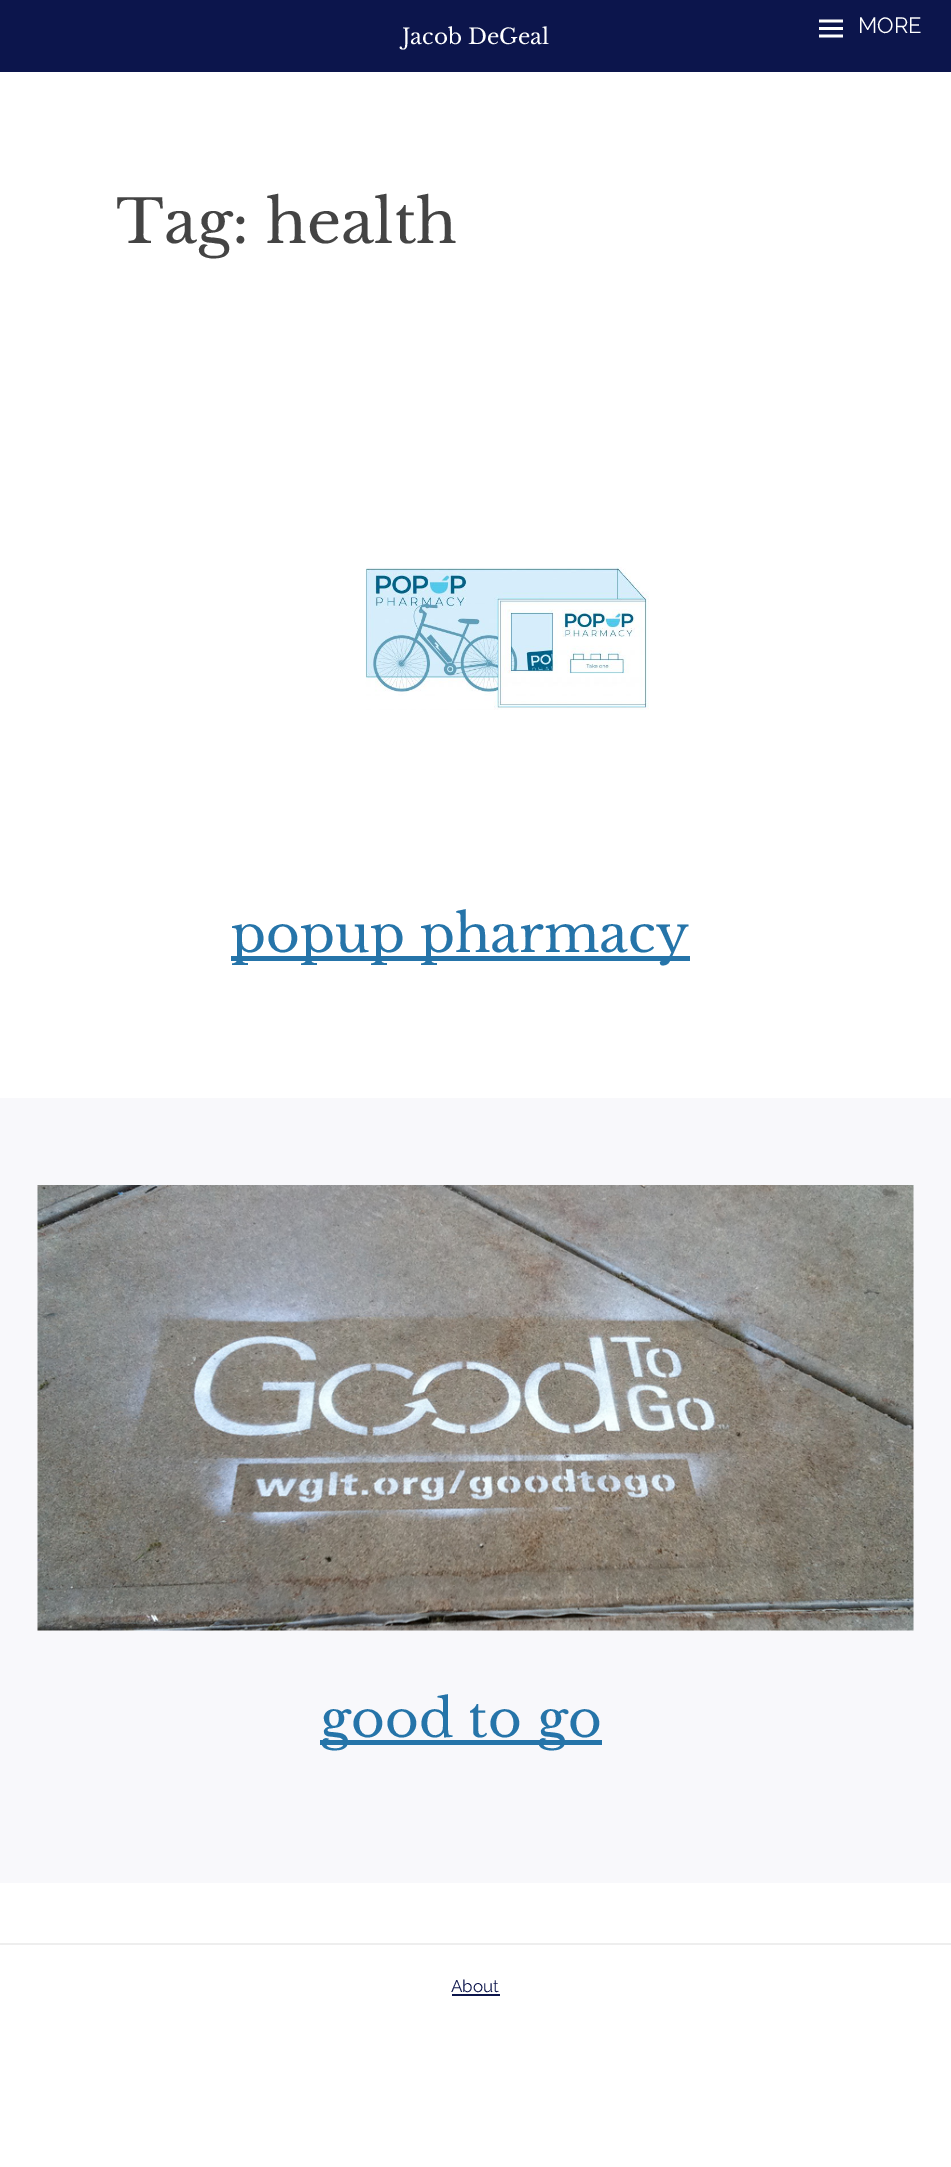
%!PS-Adobe-3.0
%%BoundingBox: 0 0 951 2167
%%LanguageLevel: 3
%%Pages: 1
%%EndComments
%%BeginProlog
/setink { dup -16 bitshift 255 div exch dup -8 bitshift 255 and 255 div exch 255 and 255 div setrgbcolor } def
/usefont { [ exch dup neg 0 0 3 -1 roll 0 0 ] selectfont } def
/drawimage { 5 dict begin { /h /w /y /x /name } { exch def } forall
  gsave x y translate w h scale
  w h 8 [w 0 0 h 0 0] name (r) file false 3 colorimage grestore end } def
%%EndProlog
%%BeginSetup
<< /PageSize [951 2167] >> setpagedevice
%%EndSetup
%%Page: 1 1
0 2167 translate 1 -1 scale
4 setmiterlimit
16#FFFFFF setink
0 0 951 2167 rectfill
16#0C154C setink
0 0 951 72 rectfill
/LibreBaskerville-Regular 21.5 usefont
16#FFFFFF setink
402 44 moveto (Jacob DeGeal) show
(img1.raw) 819 19 24 19 drawimage
/Raleway-Regular 22 usefont
858 33 moveto (MORE) show
/LibreBaskerville-Regular 59.5 usefont
16#444444 setink
116 243 moveto (Tag: health) show
(img2.raw) 365 567 284 143 drawimage
16#2574A9 setink
231 956 459 5 rectfill
/LibreBaskerville-Regular 51.75 usefont
231 952 moveto (popup pharmacy) show
16#F8F8FB setink
0 1098 951 785 rectfill
(img3.raw) 37 1185 877 446 drawimage
16#2574A9 setink
320 1740 282 5 rectfill
320 1737 moveto (good to go) show
16#EEEEEE setink
0 1943 951 2 rectfill
/Raleway-Regular 17 usefont
16#0C154C setink
451 1992 moveto (About) show
452 1994 48 2 rectfill
showpage
%%EOF
